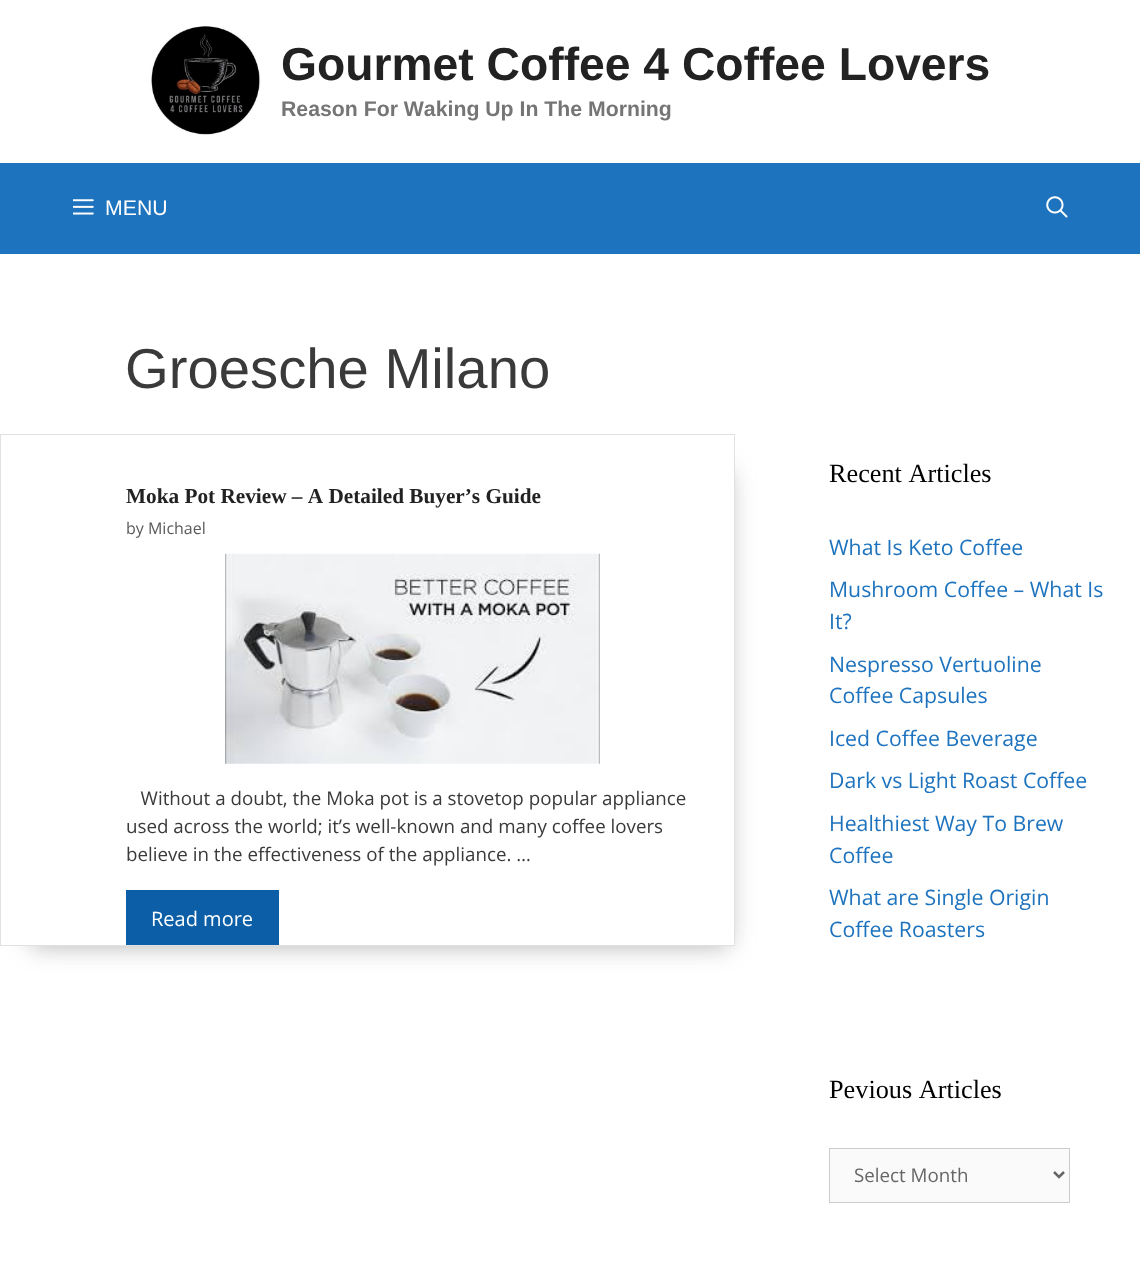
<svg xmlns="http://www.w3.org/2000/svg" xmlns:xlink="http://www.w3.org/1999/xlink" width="1140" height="1274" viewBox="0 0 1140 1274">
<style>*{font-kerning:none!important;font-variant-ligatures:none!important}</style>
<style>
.cls-1{font:bold 46.25px Liberation Sans;fill:#222222}
.cls-2{font:bold 21.25px Liberation Sans;fill:#757575}
.cls-3{font:21.25px Liberation Sans;fill:#ffffff}
.cls-4{font:56.25px Liberation Sans;fill:#3a3a3a}
.cls-5{font:bold 21.25px Liberation Serif;fill:#222222}
.cls-6{font:16px Open Sans;fill:#595959}
.cls-7{font:18.75px Open Sans;fill:#3a3a3a}
.cls-8{font:20px Open Sans;fill:#ffffff}
.cls-9{font:26.25px Liberation Serif;fill:#000000}
.cls-10{font:21.25px Open Sans;fill:#1e73be}
.cls-11{font:18.75px Open Sans;fill:#666666}
</style>
<defs>
<clipPath id="clip1"><path d="M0 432H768V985H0ZM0 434H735V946H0Z" clip-rule="evenodd"/></clipPath>
</defs>
<rect width="100%" height="100%" fill="#ffffff"/>
<image xlink:href="image0.png" x="150" y="26" width="111" height="109"/>
<rect fill="#1e73be" x="0" y="163" width="1140" height="91"/>
<image xlink:href="image1.png" x="73" y="199" width="21" height="16"/>
<image xlink:href="image2.png" x="1046" y="196" width="22" height="22"/>
<g clip-path="url(#clip1)">
<rect fill="#5a5a5a" fill-opacity="0.46" filter="blur(12.5px)" x="31" y="471" width="698" height="475"/>
</g>
<rect fill="none" stroke="#e1e1e1" x="0.5" y="434.5" width="734" height="511"/>
<image xlink:href="image3.png" x="225" y="553" width="375" height="211"/>
<rect fill="#0c5fa7" x="126" y="890" width="153" height="55"/>
<rect fill="#fafafa" stroke="#cccccc" x="829.5" y="1148.5" width="240" height="54"/>
<path fill="none" stroke="#666666" stroke-width="2.5" d="M1054 1172L1059 1177L1064 1172"/>
<text class="cls-1" x="281" y="80">Gourmet Coffee 4 Coffee Lovers</text>
<text class="cls-2" x="281" y="116">Reason For Waking Up In The Morning</text>
<text class="cls-3" x="105" y="215">MENU</text>
<text class="cls-4" x="125" y="388">Groesche Milano</text>
<text class="cls-5" x="126" y="503">Moka Pot Review – A Detailed Buyer’s Guide</text>
<text class="cls-6" x="126" y="534">by Michael</text>
<text class="cls-7" xml:space="preserve"><tspan x="126" y="805">   Without a doubt, the Moka pot is a stovetop popular appliance</tspan><tspan x="126" y="833">used across the world; it’s well-known and many coffee lovers</tspan><tspan x="126" y="861">believe in the effectiveness of the appliance. …</tspan></text>
<text class="cls-8" x="151" y="926">Read more</text>
<text class="cls-9" x="829" y="482">Recent Articles</text>
<text class="cls-10"><tspan x="829" y="555">What Is Keto Coffee</tspan><tspan x="829" y="597">Mushroom Coffee – What Is</tspan><tspan x="829" y="629">It?</tspan></text>
<text class="cls-10"><tspan x="829" y="672">Nespresso Vertuoline</tspan><tspan x="829" y="703">Coffee Capsules</tspan></text>
<text class="cls-10"><tspan x="829" y="746">Iced Coffee Beverage</tspan><tspan x="829" y="788">Dark vs Light Roast Coffee</tspan></text>
<text class="cls-10"><tspan x="829" y="831">Healthiest Way To Brew</tspan><tspan x="829" y="863">Coffee</tspan><tspan x="829" y="905">What are Single Origin</tspan><tspan x="829" y="937">Coffee Roasters</tspan></text>
<text class="cls-9" x="829" y="1098">Pevious Articles</text>
<text class="cls-11" x="854" y="1182">Select Month</text>
</svg>
